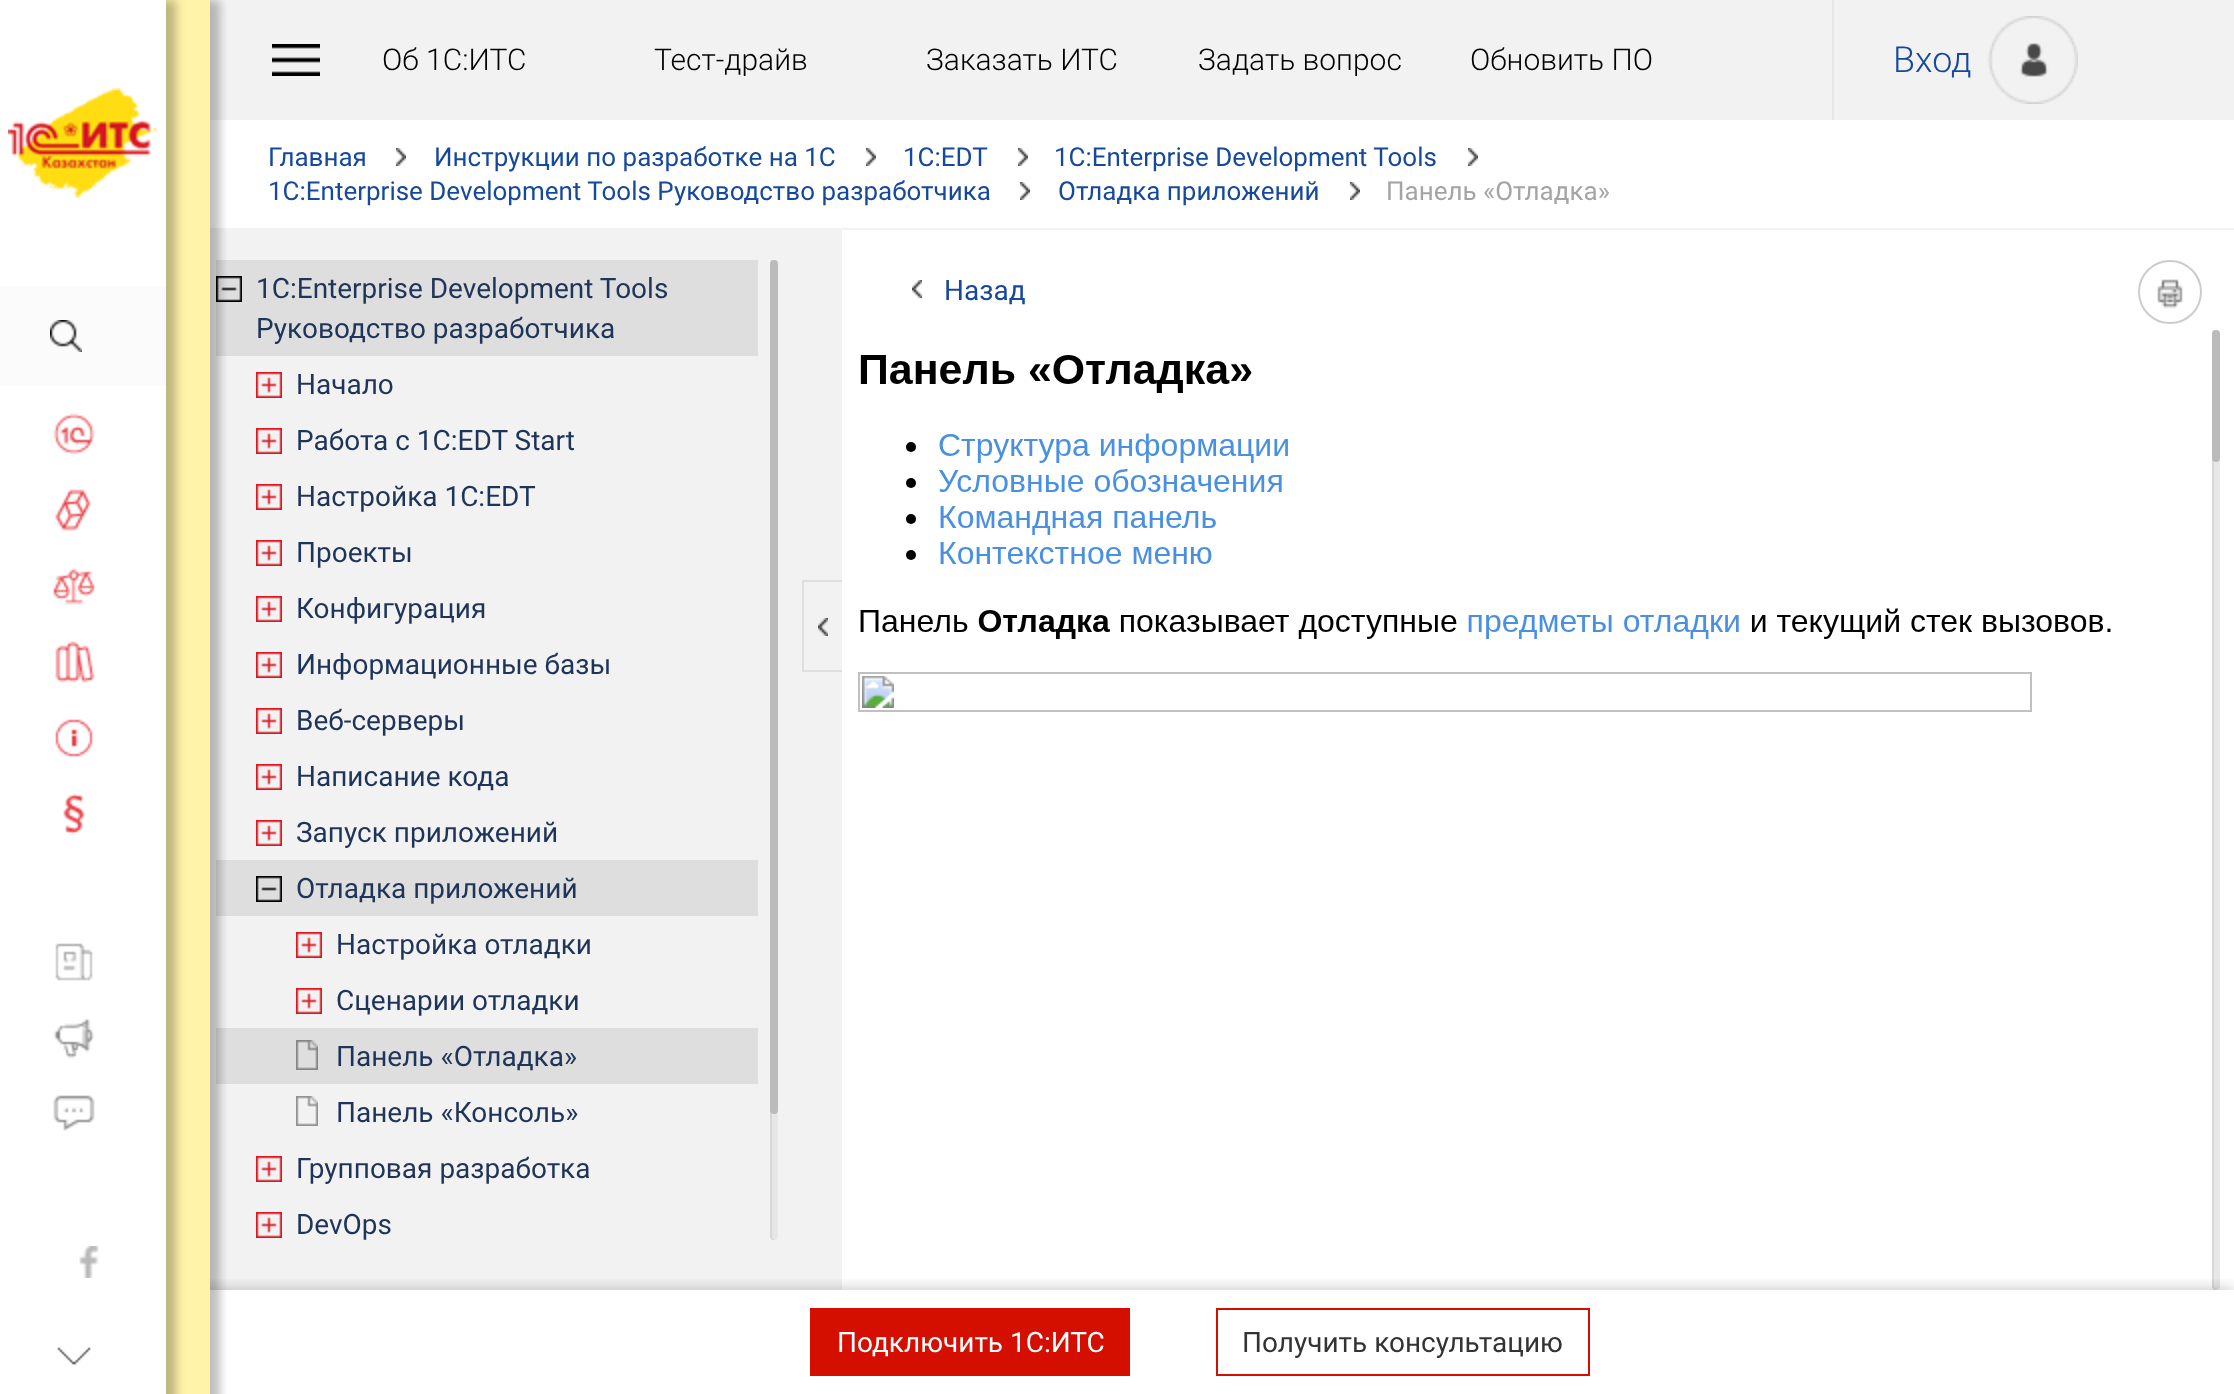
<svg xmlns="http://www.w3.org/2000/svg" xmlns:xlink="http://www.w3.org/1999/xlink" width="2234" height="1394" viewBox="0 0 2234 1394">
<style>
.cls-1{font:300 30px Roboto;fill:#000000}
.cls-2{font:300 36px Roboto;fill:#16489b}
.cls-3{font:26px Roboto;fill:#16489b}
.cls-4{font:26px Roboto;fill:#a4a4a4}
.cls-5{font:28px Roboto;fill:#1e3458}
.cls-6{font:28px Roboto;fill:#16489b}
.cls-7{font:28px Roboto;fill:#ffffff}
.cls-8{font:28px Roboto;fill:#333333}
</style>
<defs>
<clipPath id="clip1"><rect x="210" y="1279" width="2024" height="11"/></clipPath>
<clipPath id="clip2"><rect x="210" y="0" width="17" height="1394"/></clipPath>
</defs>
<rect width="100%" height="100%" fill="#ffffff"/>
<rect fill="#f2f2f2" x="210" y="230" width="632" height="1060"/>
<rect fill="#e7e7e7" x="2212" y="330" width="8" height="960" rx="4"/>
<path fill="#d8d8d8" d="M2216 330C2214 330 2212 332 2212 334V1286C2212 1288 2214 1290 2216 1290H2217C2215 1289 2214 1288 2214 1286V334C2214 332 2215 331 2217 330Z"/>
<g clip-path="url(#clip1)">
<rect fill="#000000" fill-opacity="0.25" filter="blur(8px)" x="0" y="1290" width="2234" height="104"/>
</g>
<rect fill="#fff3a9" x="166" y="0" width="44" height="1394"/>
<rect fill="#000000" fill-opacity="0.25" filter="blur(5px)" x="10" y="0" width="166" height="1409"/>
<rect fill="#ffffff" x="0" y="0" width="166" height="1318"/>
<image xlink:href="image0.png" x="53" y="413" width="42" height="42"/>
<image xlink:href="image1.png" x="55" y="489" width="36" height="42"/>
<image xlink:href="image2.png" x="53" y="568" width="42" height="37"/>
<image xlink:href="image3.png" x="55" y="641" width="40" height="42"/>
<image xlink:href="image4.png" x="55" y="719" width="38" height="38"/>
<image xlink:href="image5.png" x="63" y="793" width="22" height="42"/>
<rect fill="#f2f2f2" x="210" y="0" width="2024" height="120"/>
<rect fill="#f2f2f2" x="210" y="228" width="2024" height="2"/>
<rect fill="#dedede" x="216" y="260" width="542" height="96"/>
<image xlink:href="image16.png" x="216" y="276" width="26" height="26"/>
<rect fill="#dedede" x="216" y="860" width="542" height="56"/>
<rect fill="#dedede" x="216" y="1028" width="542" height="56"/>
<g clip-path="url(#clip2)">
<rect fill="#000000" fill-opacity="0.25" filter="blur(5px)" x="184" y="0" width="36" height="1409"/>
</g>
<image xlink:href="image6.png" x="55" y="943" width="38" height="38"/>
<image xlink:href="image7.png" x="53" y="1018" width="42" height="41"/>
<image xlink:href="image8.png" x="53" y="1095" width="42" height="36"/>
<image xlink:href="image9.png" x="8" y="88" width="150" height="110"/>
<rect fill="#fbfbfb" x="0" y="286" width="166" height="100"/>
<image xlink:href="image10.png" x="50" y="320" width="32" height="32"/>
<image xlink:href="image11.png" x="79" y="1246" width="20" height="32"/>
<rect fill="#ffffff" x="1" y="1318" width="165" height="76"/>
<image xlink:href="image12.png" x="57" y="1347" width="34" height="18"/>
<image xlink:href="image13.png" x="272" y="44" width="48" height="32"/>
<rect fill="#e6e6e6" x="1832" y="0" width="2" height="120"/>
<image xlink:href="image14.png" x="1988" y="16" width="90" height="88"/>
<image xlink:href="image15.png" x="396" y="148" width="10" height="18"/>
<image xlink:href="image15.png" x="866" y="148" width="10" height="18"/>
<image xlink:href="image15.png" x="1018" y="148" width="10" height="18"/>
<image xlink:href="image15.png" x="1468" y="148" width="10" height="18"/>
<image xlink:href="image15.png" x="1020" y="182" width="10" height="18"/>
<image xlink:href="image15.png" x="1350" y="182" width="10" height="18"/>
<image xlink:href="image17.png" x="256" y="372" width="26" height="26"/>
<image xlink:href="image17.png" x="256" y="428" width="26" height="26"/>
<image xlink:href="image17.png" x="256" y="484" width="26" height="26"/>
<image xlink:href="image17.png" x="256" y="540" width="26" height="26"/>
<image xlink:href="image17.png" x="256" y="596" width="26" height="26"/>
<image xlink:href="image17.png" x="256" y="652" width="26" height="26"/>
<image xlink:href="image17.png" x="256" y="708" width="26" height="26"/>
<image xlink:href="image17.png" x="256" y="764" width="26" height="26"/>
<image xlink:href="image17.png" x="256" y="820" width="26" height="26"/>
<image xlink:href="image16.png" x="256" y="876" width="26" height="26"/>
<image xlink:href="image17.png" x="296" y="932" width="26" height="26"/>
<image xlink:href="image17.png" x="296" y="988" width="26" height="26"/>
<image xlink:href="image18.png" x="296" y="1040" width="22" height="30"/>
<image xlink:href="image19.png" x="296" y="1096" width="22" height="30"/>
<image xlink:href="image17.png" x="256" y="1156" width="26" height="26"/>
<image xlink:href="image17.png" x="256" y="1212" width="26" height="26"/>
<rect fill="#e7e7e7" x="770" y="260" width="8" height="980" rx="4"/>
<path fill="#d8d8d8" d="M774 260C772 260 770 262 770 264V1236C770 1239 773 1241 775 1240C773 1239 772 1238 772 1236V264C772 262 773 261 775 260Z"/>
<rect fill="#bbbbbb" x="770" y="260" width="8" height="854" rx="4"/>
<rect fill="#dedede" x="802" y="580" width="40" height="2"/>
<rect fill="#dedede" x="802" y="670" width="40" height="2"/>
<rect fill="#dedede" x="802" y="580" width="2" height="92"/>
<image xlink:href="image20.png" x="818" y="618" width="10" height="18"/>
<image xlink:href="image21.png" x="912" y="280" width="10" height="18"/>
<image xlink:href="image22.png" x="2157" y="279" width="26" height="30"/>
<circle fill="none" stroke="#cccccc" stroke-width="2" cx="2170" cy="292" r="31"/>
<image xlink:href="image23.png" x="858" y="355" width="1253" height="357"/>
<rect fill="#bbbbbb" x="2212" y="330" width="8" height="132" rx="4"/>
<rect fill="#d40f00" x="810" y="1308" width="320" height="68"/>
<rect fill="none" stroke="#d40f00" stroke-width="2" x="1217" y="1309" width="372" height="66"/>
<text class="cls-1" x="382" y="70">Об 1С:ИТС</text>
<text class="cls-1" x="654" y="70">Тест-драйв</text>
<text class="cls-1" x="926" y="70">Заказать ИТС</text>
<text class="cls-1" x="1198" y="70">Задать вопрос</text>
<text class="cls-1" x="1470" y="70">Обновить ПО</text>
<text class="cls-2" x="1893" y="72">Вход</text>
<text class="cls-3" x="268" y="166">Главная</text>
<text class="cls-3" x="434" y="166">Инструкции по разработке на 1С</text>
<text class="cls-3" x="903" y="166">1C:EDT</text>
<text class="cls-3" x="1054" y="166">1C:Enterprise Development Tools</text>
<text class="cls-3" x="268" y="200">1C:Enterprise Development Tools Руководство разработчика</text>
<text class="cls-3" x="1058" y="200">Отладка приложений</text>
<text class="cls-4" x="1386" y="200">Панель «Отладка»</text>
<text class="cls-5"><tspan x="256" y="298">1C:Enterprise Development Tools</tspan><tspan x="256" y="338">Руководство разработчика</tspan></text>
<text class="cls-5" x="296" y="394">Начало</text>
<text class="cls-5" x="296" y="450">Работа с 1C:EDT Start</text>
<text class="cls-5" x="296" y="506">Настройка 1C:EDT</text>
<text class="cls-5" x="296" y="562">Проекты</text>
<text class="cls-5" x="296" y="618">Конфигурация</text>
<text class="cls-5" x="296" y="674">Информационные базы</text>
<text class="cls-5" x="296" y="730">Веб-серверы</text>
<text class="cls-5" x="296" y="786">Написание кода</text>
<text class="cls-5" x="296" y="842">Запуск приложений</text>
<text class="cls-5" x="296" y="898">Отладка приложений</text>
<text class="cls-5" x="336" y="954">Настройка отладки</text>
<text class="cls-5" x="336" y="1010">Сценарии отладки</text>
<text class="cls-5" x="336" y="1066">Панель «Отладка»</text>
<text class="cls-5" x="336" y="1122">Панель «Консоль»</text>
<text class="cls-5" x="296" y="1178">Групповая разработка</text>
<text class="cls-5" x="296" y="1234">DevOps</text>
<text class="cls-6" x="944" y="300">Назад</text>
<text class="cls-7" x="837" y="1352">Подключить 1С:ИТС</text>
<text class="cls-8" x="1242" y="1352">Получить консультацию</text>
</svg>
